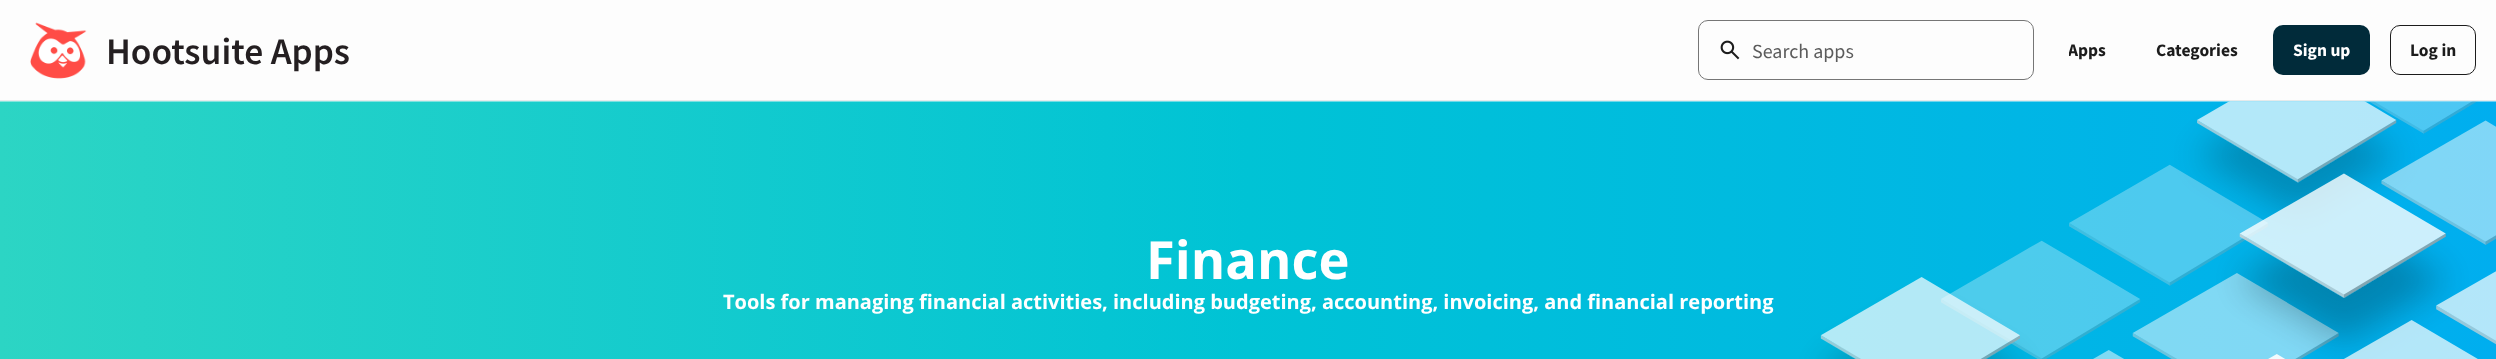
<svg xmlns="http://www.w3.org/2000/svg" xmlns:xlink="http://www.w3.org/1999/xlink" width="2496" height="359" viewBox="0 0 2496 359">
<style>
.cls-1{font:600 37.5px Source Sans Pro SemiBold;fill:#241f21}
.cls-2{font:20px Source Sans Pro;fill:#5c5c5c}
.cls-3{font:bold 17.5px Source Sans Pro;fill:#1c1c1c}
.cls-4{font:bold 17.5px Source Sans Pro;fill:#ffffff}
.cls-5{font:bold 52.5px Open Sans;fill:#ffffff}
.cls-6{font:bold 20px Open Sans;fill:#ffffff}
</style>
<defs>
<clipPath id="clip1"><rect x="2069" y="35" width="37" height="30"/></clipPath>
</defs>
<rect width="100%" height="100%" fill="#fdfdfd"/>
<rect fill="#e6eaeb" x="0" y="100" width="2496" height="1"/>
<image xlink:href="image0.png" x="30" y="22" width="57" height="57"/>
<rect fill="none" stroke="#767676" x="1698.5" y="20.5" width="335" height="59" rx="9.5"/>
<image xlink:href="image1.png" x="1720" y="40" width="20" height="20"/>
<rect fill="#012b3a" x="2273" y="25" width="97" height="50" rx="10"/>
<rect fill="none" stroke="#1c1c1c" x="2390.5" y="25.5" width="85" height="49" rx="9.5"/>
<image xlink:href="image2.png" x="0" y="101" width="2496" height="258"/>
<text class="cls-1" x="106" y="64">Hootsuite Apps</text>
<text class="cls-2" x="1752" y="58">Search apps</text>
<g clip-path="url(#clip1)">
<text class="cls-3" x="2068" y="56">Apps</text>
</g>
<text class="cls-3" x="2156" y="56">Categories</text>
<text class="cls-4" x="2293" y="56">Sign up</text>
<text class="cls-3" x="2410" y="56">Log in</text>
<text class="cls-5" x="1146" y="279">Finance</text>
<text class="cls-6" x="723" y="309">Tools for managing financial activities, including budgeting, accounting, invoicing, and financial reporting</text>
</svg>
